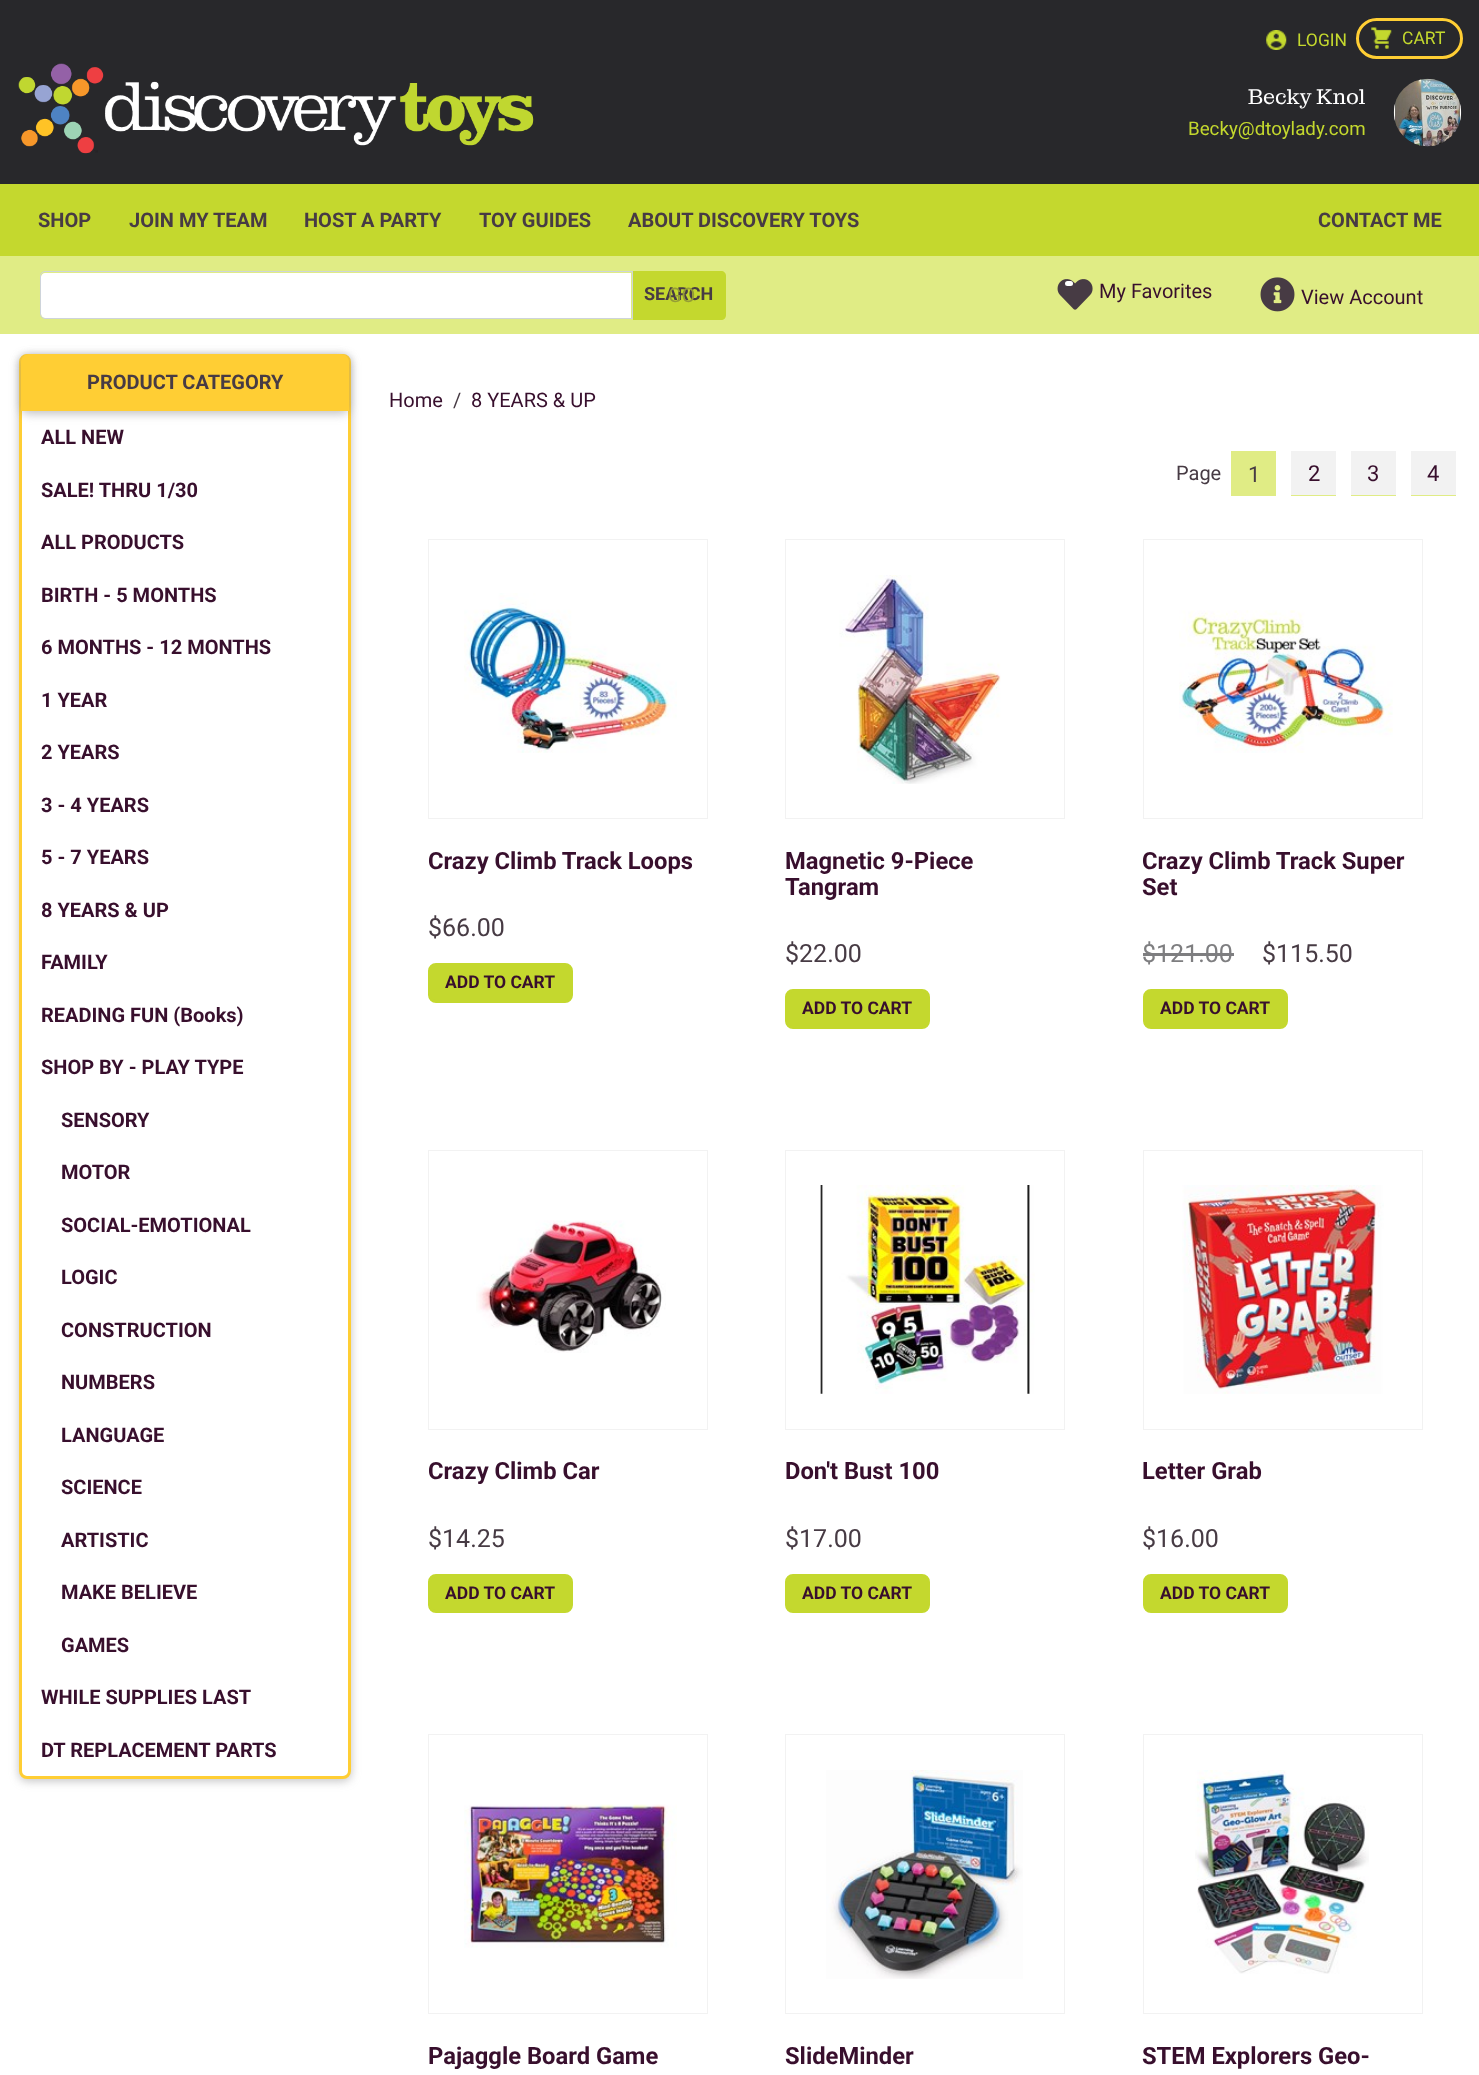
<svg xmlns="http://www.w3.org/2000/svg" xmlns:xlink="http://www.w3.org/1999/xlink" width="1479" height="2075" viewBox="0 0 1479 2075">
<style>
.cls-1{font:17.5px Roboto;fill:#c4d82e}
.cls-2{font:21.5px Montagu Slab;fill:#ffffff}
.cls-3{font:18.75px Roboto;fill:#c4d82e}
.cls-4{font:bold 20px Roboto;fill:#473b44}
.cls-5{font:bold 18px Roboto;fill:#473b44}
.cls-6{font:20px Roboto;fill:#959d36}
.cls-7{font:20px Roboto;fill:#380f2d}
.cls-8{font:bold 20px Roboto;fill:#380f2d}
.cls-9{font:20px Roboto;fill:#473b44}
.cls-10{font:22px Roboto;fill:#473b44}
.cls-11{font:22px Roboto;fill:#380f2d}
.cls-12{font:bold 23.75px Roboto;fill:#380f2d}
.cls-13{font:25px Roboto;fill:#473b44}
.cls-14{font:bold 17.5px Roboto;fill:#380f2d}
.cls-15{font:25px Roboto;fill:#7e7e80}
</style>
<rect width="100%" height="100%" fill="#ffffff"/>
<rect fill="#28282b" x="0" y="0" width="1479" height="184"/>
<image xlink:href="image0.png" x="1266" y="30" width="21" height="20"/>
<image xlink:href="image1.png" x="1371" y="27" width="21" height="22"/>
<rect fill="none" stroke="#ffce34" stroke-width="3" x="1357.5" y="19.5" width="104" height="38" rx="19"/>
<image xlink:href="image2.png" x="18" y="63" width="516" height="91"/>
<image xlink:href="image3.png" x="1393" y="78" width="69" height="69"/>
<rect fill="#c4d82e" x="0" y="184" width="1479" height="72"/>
<rect fill="#e0ec85" x="0" y="256" width="1479" height="78"/>
<path fill="#ffffff" d="M45 273H631V318H45C43 318 41 316 41 314V277C41 275 43 273 45 273Z"/>
<path fill="none" stroke="#ced4da" d="M45 271.5H632.5V318.5H45C42.5 318.5 40.5 316.5 40.5 314V276C40.5 273.5 42.5 271.5 45 271.5Z"/>
<path fill="#c4d82e" d="M633 271H721C724 271 726 273 726 276V315C726 318 724 320 721 320H633Z"/>
<image xlink:href="image4.png" x="1057" y="279" width="36" height="31"/>
<rect fill="#ffffff" x="1065" y="281" width="8" height="5" rx="2.5"/>
<image xlink:href="image5.png" x="1260" y="277" width="35" height="35"/>
<rect fill="#7e7e80" fill-opacity="0.47" filter="blur(5px)" x="19" y="356" width="332" height="1425" rx="8"/>
<rect fill="#ffffff" stroke="#ffce34" stroke-width="3" x="20.5" y="355.5" width="329" height="1422" rx="6.5"/>
<rect fill="#7e7e80" fill-opacity="0.47" filter="blur(5px)" x="21" y="356" width="328" height="58" rx="8"/>
<path fill="#ffce34" d="M29 354H341C345.5 354 349 357.5 349 362V411H21V362C21 357.5 24.5 354 29 354Z"/>
<rect fill="#e0ec85" x="1231" y="451" width="45" height="45"/>
<rect fill="#f2f2f2" x="1291" y="451" width="45" height="44"/>
<rect fill="#e0ec85" x="1291" y="495" width="45" height="1"/>
<rect fill="#f2f2f2" x="1351" y="451" width="45" height="44"/>
<rect fill="#e0ec85" x="1351" y="495" width="45" height="1"/>
<rect fill="#f2f2f2" x="1411" y="451" width="45" height="44"/>
<rect fill="#e0ec85" x="1411" y="495" width="45" height="1"/>
<rect fill="none" stroke="#f2f2f2" x="428.5" y="539.5" width="279" height="279"/>
<image xlink:href="image6.png" x="464" y="593" width="213" height="160"/>
<rect fill="#c4d82e" stroke="#c4d82e" stroke-width="3" x="429.5" y="964.5" width="142" height="37" rx="6.5"/>
<rect fill="none" stroke="#f2f2f2" x="785.5" y="539.5" width="279" height="279"/>
<image xlink:href="image7.png" x="839" y="575" width="162" height="209"/>
<rect fill="#c4d82e" stroke="#c4d82e" stroke-width="3" x="786.5" y="990.5" width="142" height="37" rx="6.5"/>
<rect fill="none" stroke="#f2f2f2" x="1143.5" y="539.5" width="279" height="279"/>
<image xlink:href="image8.png" x="1179" y="610" width="214" height="143"/>
<rect fill="#7e7e80" x="1143" y="953" width="91" height="3"/>
<rect fill="#c4d82e" stroke="#c4d82e" stroke-width="3" x="1144.5" y="990.5" width="142" height="37" rx="6.5"/>
<rect fill="none" stroke="#f2f2f2" x="428.5" y="1150.5" width="279" height="279"/>
<image xlink:href="image9.png" x="476" y="1220" width="190" height="133"/>
<rect fill="#c4d82e" stroke="#c4d82e" stroke-width="3" x="429.5" y="1575.5" width="142" height="36" rx="6.5"/>
<rect fill="none" stroke="#f2f2f2" x="785.5" y="1150.5" width="279" height="279"/>
<image xlink:href="image10.png" x="820" y="1185" width="215" height="209"/>
<rect fill="#c4d82e" stroke="#c4d82e" stroke-width="3" x="786.5" y="1575.5" width="142" height="36" rx="6.5"/>
<rect fill="none" stroke="#f2f2f2" x="1143.5" y="1150.5" width="279" height="279"/>
<image xlink:href="image11.png" x="1182" y="1185" width="202" height="209"/>
<rect fill="#c4d82e" stroke="#c4d82e" stroke-width="3" x="1144.5" y="1575.5" width="142" height="36" rx="6.5"/>
<rect fill="none" stroke="#f2f2f2" x="428.5" y="1734.5" width="279" height="279"/>
<image xlink:href="image12.png" x="464" y="1804" width="213" height="144"/>
<rect fill="none" stroke="#f2f2f2" x="785.5" y="1734.5" width="279" height="279"/>
<image xlink:href="image13.png" x="826" y="1770" width="197" height="209"/>
<rect fill="none" stroke="#f2f2f2" x="1143.5" y="1734.5" width="279" height="279"/>
<image xlink:href="image14.png" x="1195" y="1770" width="174" height="204"/>
<text class="cls-1" x="1297" y="46">LOGIN</text>
<text class="cls-1" x="1402" y="44">CART</text>
<text class="cls-2" x="1248" y="104">Becky Knol</text>
<text class="cls-3" x="1188" y="135">Becky@dtoylady.com</text>
<text class="cls-4" x="38" y="227">SHOP</text>
<text class="cls-4" x="129" y="227">JOIN MY TEAM</text>
<text class="cls-4" x="304" y="227">HOST A PARTY</text>
<text class="cls-4" x="479" y="227">TOY GUIDES</text>
<text class="cls-4" x="628" y="227">ABOUT DISCOVERY TOYS</text>
<text class="cls-4" x="1318" y="227">CONTACT ME</text>
<text class="cls-5" x="644" y="300">SEARCH</text>
<text class="cls-6" x="668" y="302">GO</text>
<text class="cls-7" x="1099" y="298">My Favorites</text>
<text class="cls-7" x="1301" y="304">View Account</text>
<text class="cls-4" x="87" y="389">PRODUCT CATEGORY</text>
<text class="cls-8" x="41" y="444">ALL NEW</text>
<text class="cls-8" x="41" y="497">SALE! THRU 1/30</text>
<text class="cls-8" x="41" y="549">ALL PRODUCTS</text>
<text class="cls-8" x="41" y="602">BIRTH - 5 MONTHS</text>
<text class="cls-8" x="41" y="654">6 MONTHS - 12 MONTHS</text>
<text class="cls-8" x="41" y="707">1 YEAR</text>
<text class="cls-8" x="41" y="759">2 YEARS</text>
<text class="cls-8" x="41" y="812">3 - 4 YEARS</text>
<text class="cls-8" x="41" y="864">5 - 7 YEARS</text>
<text class="cls-8" x="41" y="917">8 YEARS &amp; UP</text>
<text class="cls-8" x="41" y="969">FAMILY</text>
<text class="cls-8" x="41" y="1022">READING FUN (Books)</text>
<text class="cls-8" x="41" y="1074">SHOP BY - PLAY TYPE</text>
<text class="cls-8" x="61" y="1127">SENSORY</text>
<text class="cls-8" x="61" y="1179">MOTOR</text>
<text class="cls-8" x="61" y="1232">SOCIAL-EMOTIONAL</text>
<text class="cls-8" x="61" y="1284">LOGIC</text>
<text class="cls-8" x="61" y="1337">CONSTRUCTION</text>
<text class="cls-8" x="61" y="1389">NUMBERS</text>
<text class="cls-8" x="61" y="1442">LANGUAGE</text>
<text class="cls-8" x="61" y="1494">SCIENCE</text>
<text class="cls-8" x="61" y="1547">ARTISTIC</text>
<text class="cls-8" x="61" y="1599">MAKE BELIEVE</text>
<text class="cls-8" x="61" y="1652">GAMES</text>
<text class="cls-8" x="41" y="1704">WHILE SUPPLIES LAST</text>
<text class="cls-8" x="41" y="1757">DT REPLACEMENT PARTS</text>
<text class="cls-7" x="389" y="407">Home</text>
<text class="cls-9" x="453" y="407">/</text>
<text class="cls-7" x="471" y="407">8 YEARS &amp; UP</text>
<text class="cls-9" x="1176" y="480">Page</text>
<text class="cls-10" x="1248" y="482">1</text>
<text class="cls-11" x="1308" y="481">2</text>
<text class="cls-11" x="1367" y="481">3</text>
<text class="cls-11" x="1427" y="481">4</text>
<text class="cls-12" x="428" y="869">Crazy Climb Track Loops</text>
<text class="cls-13" x="428" y="936">$66.00</text>
<text class="cls-14" x="445" y="988">ADD TO CART</text>
<text class="cls-12"><tspan x="785" y="869">Magnetic 9-Piece</tspan><tspan x="785" y="895">Tangram</tspan></text>
<text class="cls-13" x="785" y="962">$22.00</text>
<text class="cls-14" x="802" y="1014">ADD TO CART</text>
<text class="cls-12"><tspan x="1142" y="869">Crazy Climb Track Super</tspan><tspan x="1142" y="895">Set</tspan></text>
<text class="cls-15" x="1142" y="962">$121.00</text>
<text class="cls-13" x="1262" y="962">$115.50</text>
<text class="cls-14" x="1160" y="1014">ADD TO CART</text>
<text class="cls-12" x="428" y="1479">Crazy Climb Car</text>
<text class="cls-13" x="428" y="1547">$14.25</text>
<text class="cls-14" x="445" y="1599">ADD TO CART</text>
<text class="cls-12" x="785" y="1479">Don't Bust 100</text>
<text class="cls-13" x="785" y="1547">$17.00</text>
<text class="cls-14" x="802" y="1599">ADD TO CART</text>
<text class="cls-12" x="1142" y="1479">Letter Grab</text>
<text class="cls-13" x="1142" y="1547">$16.00</text>
<text class="cls-14" x="1160" y="1599">ADD TO CART</text>
<text class="cls-12" x="428" y="2064">Pajaggle Board Game</text>
<text class="cls-12" x="785" y="2064">SlideMinder</text>
<text class="cls-12" x="1142" y="2064">STEM Explorers Geo-</text>
</svg>
